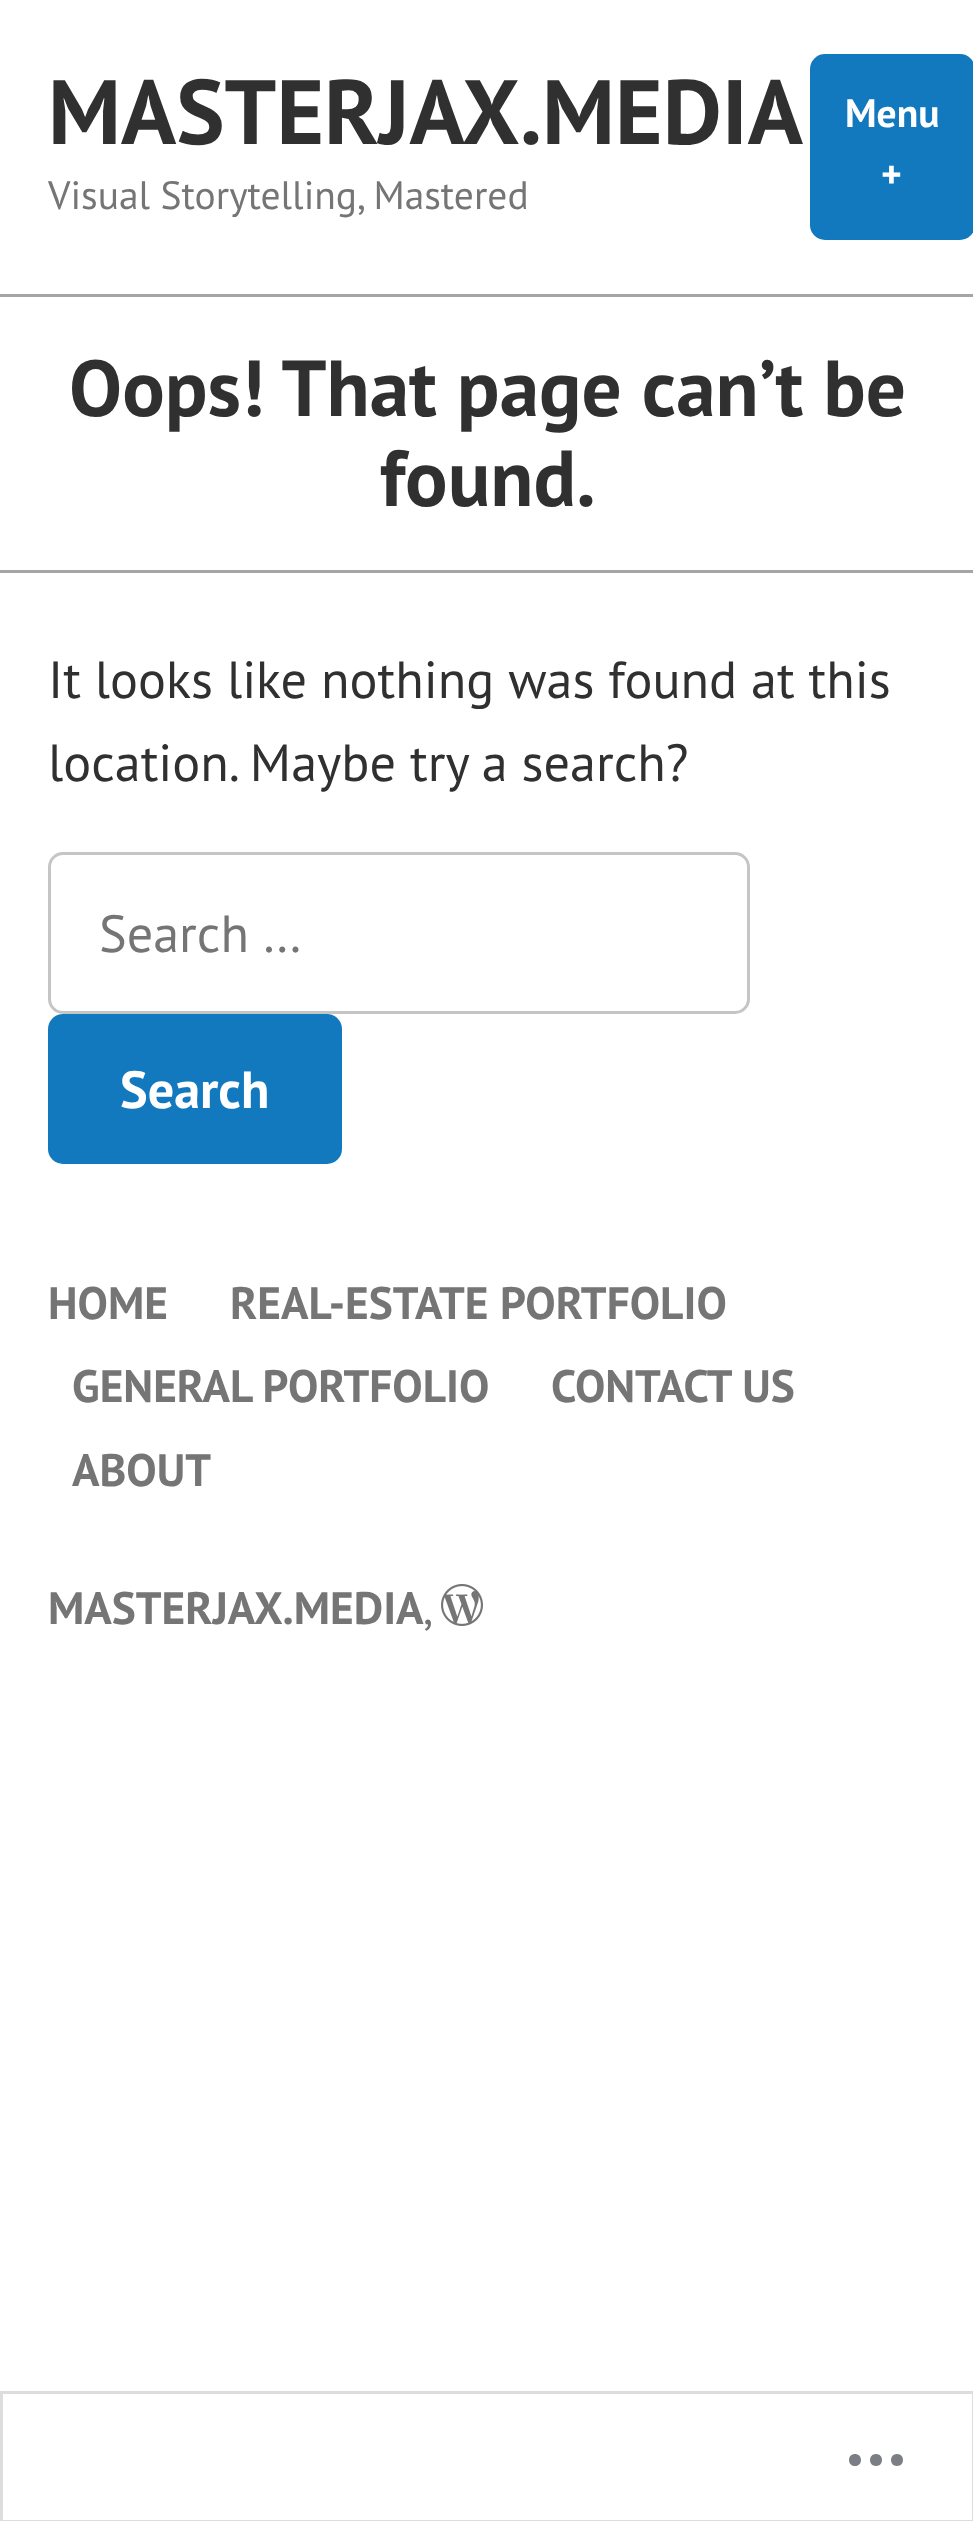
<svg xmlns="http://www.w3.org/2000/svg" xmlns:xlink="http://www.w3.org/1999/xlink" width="973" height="2521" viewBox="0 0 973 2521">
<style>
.cls-1{font:bold 91.25px PT Sans;fill:#303030}
.cls-2{font:bold 39.5px PT Sans;fill:#ffffff}
.cls-3{font:39.5px PT Sans;fill:#757575}
.cls-4{font:bold 79.3px PT Sans;fill:#303030}
.cls-5{font:52.2px PT Sans;fill:#303030}
.cls-6{font:52.2px PT Sans;fill:#757575}
.cls-7{font:bold 52.2px PT Sans;fill:#ffffff}
.cls-8{font:bold 45.4px PT Sans;fill:#757575}
.cls-9{font:45.4px PT Sans;fill:#757575}
</style>
<rect width="100%" height="100%" fill="#ffffff"/>
<rect fill="#1279be" x="810" y="54" width="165" height="186" rx="15"/>
<rect fill="#a5a5a5" x="0" y="294" width="973" height="3"/>
<rect fill="#a5a5a5" x="0" y="570" width="973" height="3"/>
<rect fill="none" stroke="#c5c5c5" stroke-width="3" x="49.5" y="853.5" width="699" height="159" rx="13.5"/>
<rect fill="#1279be" x="48" y="1014" width="294" height="150" rx="15"/>
<image xlink:href="image0.png" x="441" y="1584" width="42" height="42"/>
<rect fill="none" stroke="#dddddf" stroke-width="3" x="1.5" y="2392.5" width="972" height="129"/>
<path fill="#7b7f85" d="M861 2460C861 2468 849 2468 849 2460C849 2452 861 2452 861 2460ZM897 2454C889 2454 889 2466 897 2466C905 2466 905 2454 897 2454ZM876 2454C868 2454 868 2466 876 2466C884 2466 884 2454 876 2454Z"/>
<text class="cls-1" x="48" y="144">MASTERJAX.MEDIA</text>
<text class="cls-2" x="845" y="127">Menu</text>
<text class="cls-2" x="881" y="188">+</text>
<text class="cls-3" x="48" y="209">Visual Storytelling, Mastered</text>
<text class="cls-4" x="69" y="416">Oops! That page can’t be</text>
<text class="cls-4" x="380" y="506">found.</text>
<text class="cls-5"><tspan x="48" y="698">It looks like nothing was found at this</tspan><tspan x="48" y="781">location. Maybe try a search?</tspan></text>
<text class="cls-6" x="99" y="952">Search …</text>
<text class="cls-7" x="120" y="1108">Search</text>
<text class="cls-8" x="48" y="1319">HOME</text>
<text class="cls-8" x="230" y="1319">REAL-ESTATE PORTFOLIO</text>
<text class="cls-8" x="72" y="1402">GENERAL PORTFOLIO</text>
<text class="cls-8" x="551" y="1402">CONTACT US</text>
<text class="cls-8" x="72" y="1486">ABOUT</text>
<text class="cls-8" x="48" y="1624">MASTERJAX.MEDIA</text>
<text class="cls-9" x="423" y="1624">,</text>
</svg>
